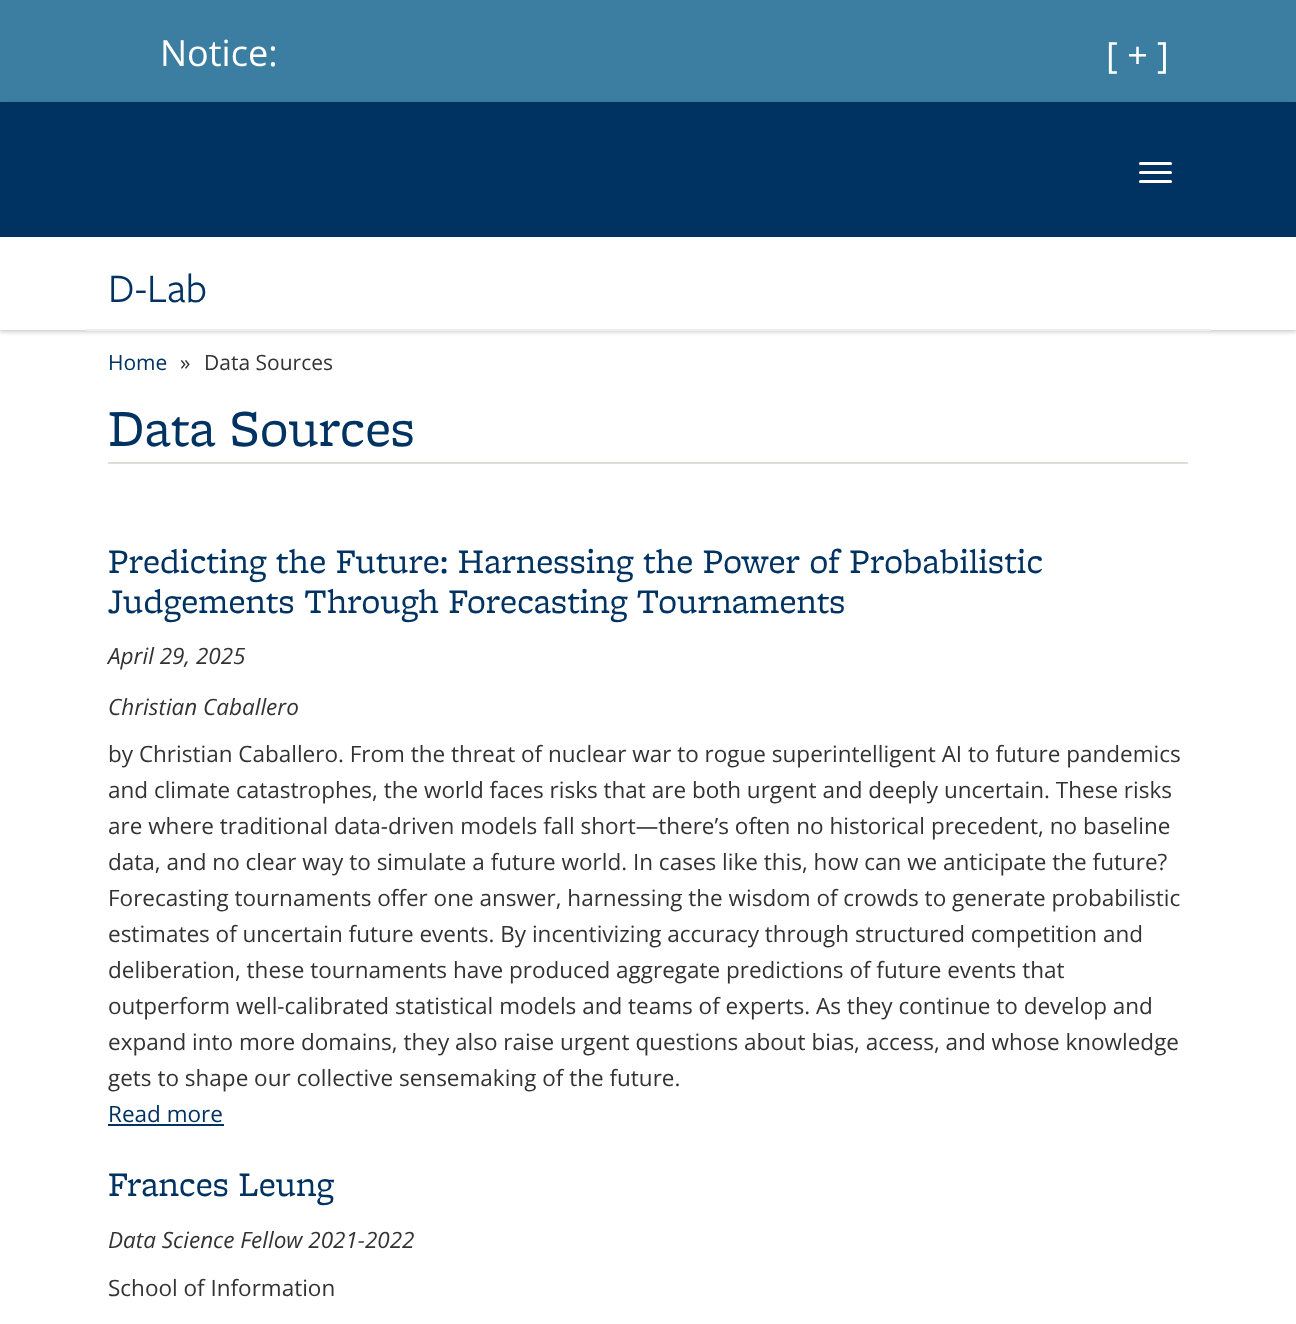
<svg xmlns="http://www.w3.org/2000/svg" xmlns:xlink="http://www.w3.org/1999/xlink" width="1296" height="1324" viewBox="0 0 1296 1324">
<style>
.cls-1{font:36px Open Sans;fill:#ffffff}
.cls-2{font:42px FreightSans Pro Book;fill:#003262}
.cls-3{font:21px Open Sans;fill:#003262}
.cls-4{font:21px Open Sans;fill:#333333}
.cls-5{font:54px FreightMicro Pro;fill:#003262}
.cls-6{font:36px FreightMicro Pro;fill:#003262}
.cls-7{font:italic 22.5px Open Sans;fill:#333333}
.cls-8{font:22.5px Open Sans;fill:#333333}
.cls-9{font:22.5px Open Sans;fill:#003262}
</style>
<defs>
<clipPath id="clip1"><path d="M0 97H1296V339H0ZM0 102H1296V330H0Z" clip-rule="evenodd"/></clipPath>
</defs>
<rect width="100%" height="100%" fill="#ffffff"/>
<rect fill="#3b7ea1" x="0" y="0" width="1296" height="102"/>
<g clip-path="url(#clip1)">
<rect fill="#000000" fill-opacity="0.2" filter="blur(2px)" x="0" y="104" width="1296" height="228"/>
</g>
<rect fill="#003262" x="0" y="102" width="1296" height="135"/>
<rect fill="#ffffff" x="1139" y="162" width="33" height="3" rx="1.5"/>
<rect fill="#ffffff" x="1139" y="171" width="33" height="3" rx="1.5"/>
<rect fill="#ffffff" x="1139" y="180" width="33" height="3" rx="1.5"/>
<rect fill="#eeeeee" x="86" y="329" width="1125" height="2"/>
<rect fill="#dfddd6" x="108" y="462" width="1080" height="2"/>
<rect fill="#003262" x="108" y="1124" width="116" height="2"/>
<text class="cls-1" x="160" y="66">Notice:</text>
<text class="cls-1" x="1106" y="68">[ + ]</text>
<text class="cls-2" x="108" y="302">D-Lab</text>
<text class="cls-3" x="108" y="370">Home</text>
<text class="cls-4" x="180" y="370">»</text>
<text class="cls-4" x="204" y="370">Data Sources</text>
<text class="cls-5" x="108" y="446">Data Sources</text>
<text class="cls-6"><tspan x="108" y="573">Predicting the Future: Harnessing the Power of Probabilistic</tspan><tspan x="108" y="613">Judgements Through Forecasting Tournaments</tspan></text>
<text class="cls-7" x="108" y="664">April 29, 2025</text>
<text class="cls-7" x="108" y="715">Christian Caballero</text>
<text class="cls-8"><tspan x="108" y="762">by Christian Caballero. From the threat of nuclear war to rogue superintelligent AI to future pandemics</tspan><tspan x="108" y="798">and climate catastrophes, the world faces risks that are both urgent and deeply uncertain. These risks</tspan><tspan x="108" y="834">are where traditional data-driven models fall short—there’s often no historical precedent, no baseline</tspan><tspan x="108" y="870">data, and no clear way to simulate a future world. In cases like this, how can we anticipate the future?</tspan><tspan x="108" y="906">Forecasting tournaments offer one answer, harnessing the wisdom of crowds to generate probabilistic</tspan><tspan x="108" y="942">estimates of uncertain future events. By incentivizing accuracy through structured competition and</tspan><tspan x="108" y="978">deliberation, these tournaments have produced aggregate predictions of future events that</tspan><tspan x="108" y="1014">outperform well-calibrated statistical models and teams of experts. As they continue to develop and</tspan><tspan x="108" y="1050">expand into more domains, they also raise urgent questions about bias, access, and whose knowledge</tspan><tspan x="108" y="1086">gets to shape our collective sensemaking of the future.</tspan></text>
<text class="cls-9" x="108" y="1122">Read more</text>
<text class="cls-6" x="108" y="1196">Frances Leung</text>
<text class="cls-7" x="108" y="1248">Data Science Fellow 2021-2022</text>
<text class="cls-8" x="108" y="1296">School of Information</text>
</svg>
